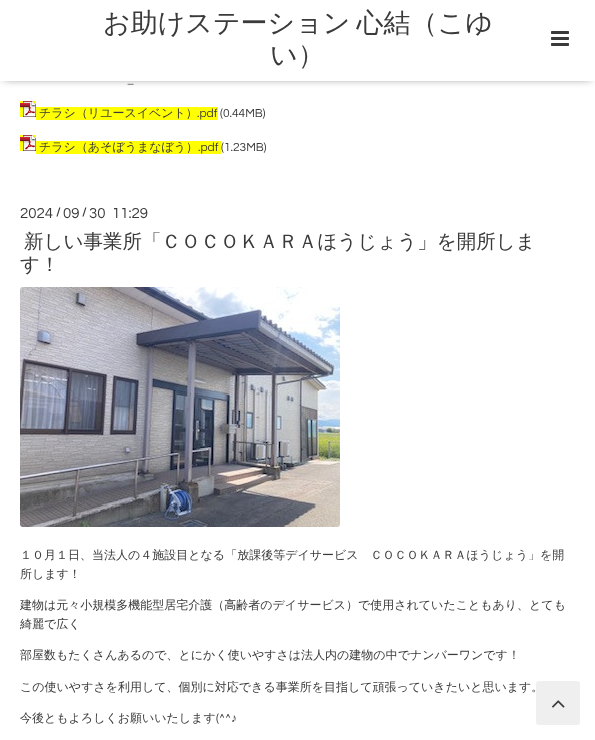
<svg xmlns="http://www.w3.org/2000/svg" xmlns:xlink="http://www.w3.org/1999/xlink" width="595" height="740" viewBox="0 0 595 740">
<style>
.cls-1{font:500 27px WenQuanYi Zen Hei;fill:#3a3a3a}
.cls-2{font:12px Questrial;fill:#3a3a3a}
.cls-3{font:500 12px WenQuanYi Zen Hei;fill:#3a3a3a}
.cls-4{font:15px Questrial;fill:#3a3a3a}
.cls-5{font:bold 12px Questrial;fill:#3a3a3a}
.cls-6{font:500 19.5px WenQuanYi Zen Hei;fill:#3a3a3a}
.cls-7{font:12px Liberation Sans;fill:#3a3a3a}
</style>
<rect width="100%" height="100%" fill="#ffffff"/>
<rect fill="#000000" fill-opacity="0.6" filter="blur(5px)" x="4" y="5" width="587" height="73"/>
<rect fill="#ffffff" x="0" y="0" width="595" height="81"/>
<image xlink:href="image0.png" x="551" y="31" width="18" height="15"/>
<rect fill="#ffff00" x="20" y="101" width="16" height="16"/>
<image xlink:href="image1.png" x="20" y="101" width="16" height="16"/>
<rect fill="#ffff00" x="36" y="107" width="182" height="13"/>
<rect fill="#ffff00" x="20" y="135" width="16" height="16"/>
<image xlink:href="image1.png" x="20" y="135" width="16" height="16"/>
<rect fill="#ffff00" x="36" y="141" width="185" height="13"/>
<image xlink:href="image2.png" x="20" y="287" width="320" height="240"/>
<rect fill="#efefef" x="536" y="681" width="44" height="44" rx="3"/>
<image xlink:href="image3.png" x="552" y="700" width="13" height="8"/>
<text class="cls-1" x="103" y="32" word-spacing="-2">お助けステーション 心結（こゆ</text>
<text class="cls-1" x="270" y="64">い）</text>
<text class="cls-2" x="127" y="83">_</text>
<text class="cls-3" x="39" y="117">チラシ（リユースイベント）</text>
<text class="cls-2" x="197" y="117">.pdf (0.44MB)</text>
<text class="cls-3" x="39" y="151">チラシ（あそぼうまなぼう）</text>
<text class="cls-2" x="198" y="151">.pdf (1.23MB)</text>
<text class="cls-4" x="20" y="218">2024</text>
<text class="cls-5" x="56" y="216">/</text>
<text class="cls-4" x="63" y="218">09</text>
<text class="cls-5" x="82" y="216">/</text>
<text class="cls-4" xml:space="preserve" x="89" y="218">30  11:29</text>
<text class="cls-6" x="24" y="248">新しい事業所「ＣＯＣＯＫＡＲＡほうじょう」を開所しま</text>
<text class="cls-6" x="20" y="271">す！</text>
<text class="cls-3"><tspan x="20" y="559">１０月１日、当法人の４施設目となる「放課後等デイサービス　ＣＯＣＯＫＡＲＡほうじょう」を開</tspan><tspan x="20" y="578">所します！</tspan></text>
<text class="cls-3"><tspan x="20" y="609">建物は元々小規模多機能型居宅介護（高齢者のデイサービス）で使用されていたこともあり、とても</tspan><tspan x="20" y="628">綺麗で広く</tspan></text>
<text class="cls-3" x="20" y="659">部屋数もたくさんあるので、とにかく使いやすさは法人内の建物の中でナンバーワンです！</text>
<text class="cls-3" x="20" y="691">この使いやすさを利用して、個別に対応できる事業所を目指して頑張っていきたいと思います。</text>
<text class="cls-3" x="20" y="722">今後ともよろしくお願いいたします</text>
<text class="cls-2" x="216" y="722">(^^</text>
<text class="cls-7" x="231" y="722">♪</text>
</svg>
